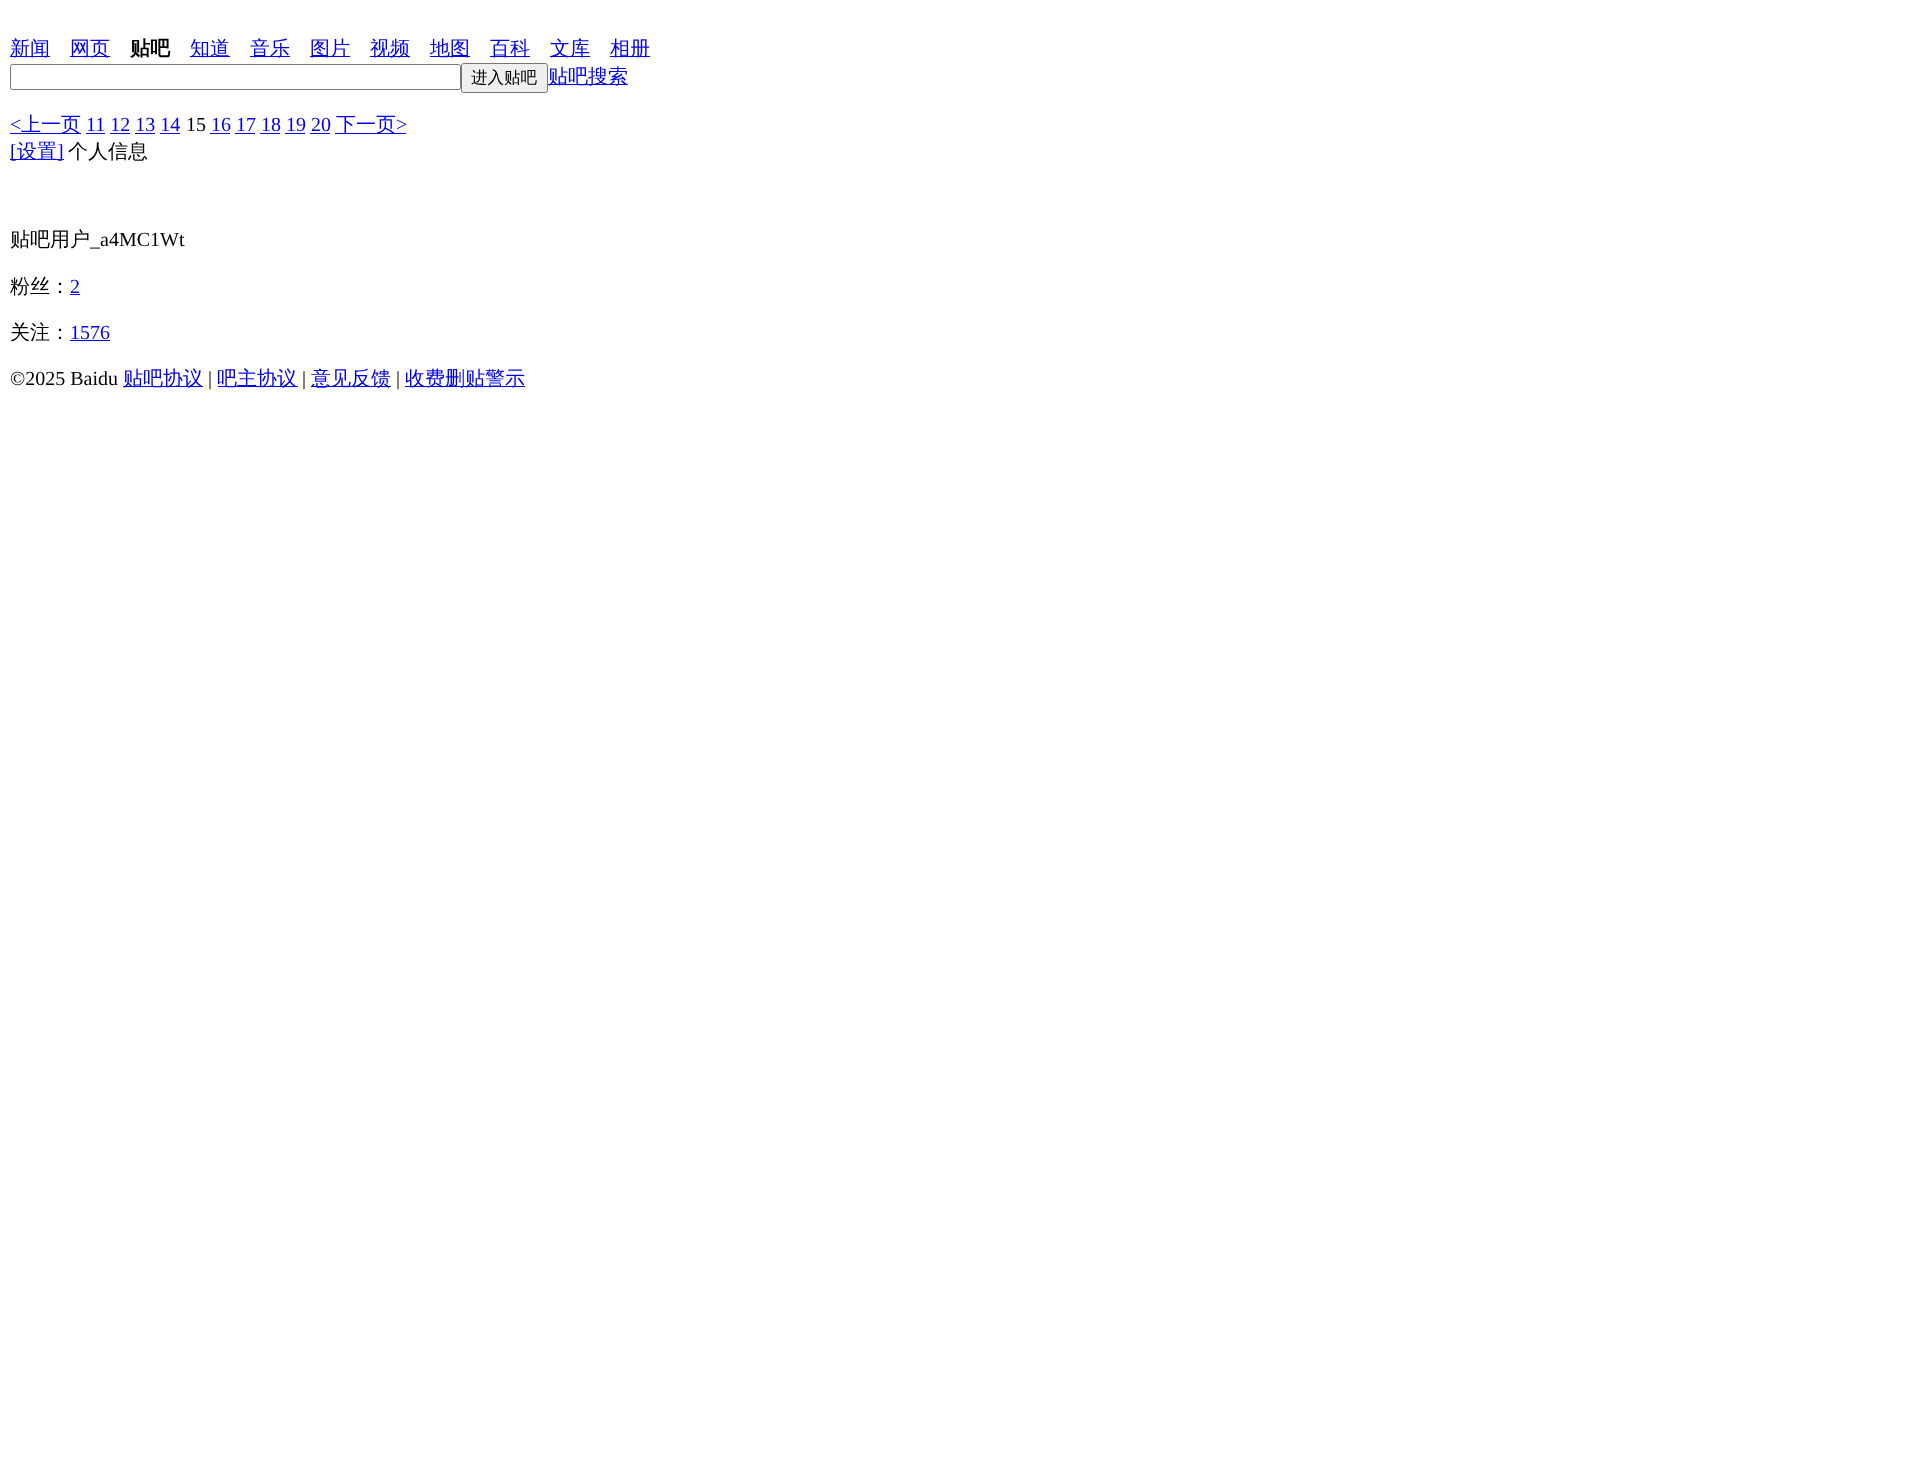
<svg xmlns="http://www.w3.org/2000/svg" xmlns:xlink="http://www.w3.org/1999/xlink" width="1914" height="1460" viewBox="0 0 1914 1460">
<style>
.cls-1{font:500 20px WenQuanYi Zen Hei;fill:#0000ee}
.cls-2{font:bold 20px WenQuanYi Zen Hei;fill:#000000}
.cls-3{font:500 16.5px WenQuanYi Zen Hei;fill:#000000}
.cls-4{font:20px Liberation Serif;fill:#0000ee}
.cls-5{font:20px Liberation Serif;fill:#000000}
.cls-6{font:500 20px WenQuanYi Zen Hei;fill:#000000}
</style>
<rect width="100%" height="100%" fill="#ffffff"/>
<rect fill="#0000ee" x="10" y="56" width="40" height="1"/>
<rect fill="#0000ee" x="70" y="56" width="40" height="1"/>
<rect fill="#0000ee" x="190" y="56" width="40" height="1"/>
<rect fill="#0000ee" x="250" y="56" width="40" height="1"/>
<rect fill="#0000ee" x="310" y="56" width="40" height="1"/>
<rect fill="#0000ee" x="370" y="56" width="40" height="1"/>
<rect fill="#0000ee" x="430" y="56" width="40" height="1"/>
<rect fill="#0000ee" x="490" y="56" width="40" height="1"/>
<rect fill="#0000ee" x="550" y="56" width="40" height="1"/>
<rect fill="#0000ee" x="610" y="56" width="40" height="1"/>
<rect fill="none" stroke="#767676" x="10.5" y="64.5" width="450" height="25" rx="2"/>
<rect fill="#efefef" stroke="#767676" x="461.5" y="63.5" width="86" height="29" rx="2"/>
<rect fill="#0000ee" x="548" y="84" width="80" height="1"/>
<rect fill="#0000ee" x="10" y="133" width="71" height="1"/>
<rect fill="#0000ee" x="86" y="133" width="19" height="1"/>
<rect fill="#0000ee" x="210" y="133" width="20" height="1"/>
<rect fill="#0000ee" x="335" y="133" width="71" height="1"/>
<rect fill="#0000ee" x="110" y="133" width="20" height="1"/>
<rect fill="#0000ee" x="135" y="133" width="20" height="1"/>
<rect fill="#0000ee" x="160" y="133" width="20" height="1"/>
<rect fill="#0000ee" x="235" y="133" width="20" height="1"/>
<rect fill="#0000ee" x="260" y="133" width="20" height="1"/>
<rect fill="#0000ee" x="285" y="133" width="20" height="1"/>
<rect fill="#0000ee" x="310" y="133" width="20" height="1"/>
<rect fill="#0000ee" x="10" y="159" width="54" height="1"/>
<rect fill="#0000ee" x="70" y="294" width="10" height="1"/>
<rect fill="#0000ee" x="70" y="340" width="40" height="1"/>
<rect fill="#0000ee" x="123" y="386" width="80" height="1"/>
<rect fill="#0000ee" x="218" y="386" width="80" height="1"/>
<rect fill="#0000ee" x="311" y="386" width="80" height="1"/>
<rect fill="#0000ee" x="405" y="386" width="120" height="1"/>
<text class="cls-1" x="10" y="55">新闻</text>
<text class="cls-1" x="70" y="55">网页</text>
<text class="cls-2" x="130" y="55">贴吧</text>
<text class="cls-1" x="190" y="55">知道</text>
<text class="cls-1" x="250" y="55">音乐</text>
<text class="cls-1" x="310" y="55">图片</text>
<text class="cls-1" x="370" y="55">视频</text>
<text class="cls-1" x="430" y="55">地图</text>
<text class="cls-1" x="490" y="55">百科</text>
<text class="cls-1" x="550" y="55">文库</text>
<text class="cls-1" x="610" y="55">相册</text>
<text class="cls-3" x="471" y="83">进入贴吧</text>
<text class="cls-1" x="548" y="83">贴吧搜索</text>
<text class="cls-4" x="10" y="131">&lt;</text>
<text class="cls-1" x="21" y="131">上一页</text>
<text class="cls-4" x="86" y="131">11 12 13 14</text>
<text class="cls-5" x="186" y="131">15</text>
<text class="cls-4" x="211" y="131">16 17 18 19 20</text>
<text class="cls-1" x="336" y="131">下一页</text>
<text class="cls-4" x="396" y="131">&gt;</text>
<text class="cls-4" x="10" y="158">[</text>
<text class="cls-1" x="17" y="158">设置</text>
<text class="cls-4" x="57" y="158">]</text>
<text class="cls-6" x="68" y="158">个人信息</text>
<text class="cls-6" x="10" y="246">贴吧用户</text>
<text class="cls-5" x="90" y="246">_a4MC1Wt</text>
<text class="cls-6" x="10" y="293">粉丝：</text>
<text class="cls-4" x="70" y="293">2</text>
<text class="cls-6" x="10" y="339">关注：</text>
<text class="cls-4" x="70" y="339">1576</text>
<text class="cls-5" x="10" y="385">©2025 Baidu</text>
<text class="cls-1" x="123" y="385">贴吧协议</text>
<text class="cls-5" x="208" y="385">|</text>
<text class="cls-1" x="217" y="385">吧主协议</text>
<text class="cls-5" x="302" y="385">|</text>
<text class="cls-1" x="311" y="385">意见反馈</text>
<text class="cls-5" x="396" y="385">|</text>
<text class="cls-1" x="405" y="385">收费删贴警示</text>
</svg>
